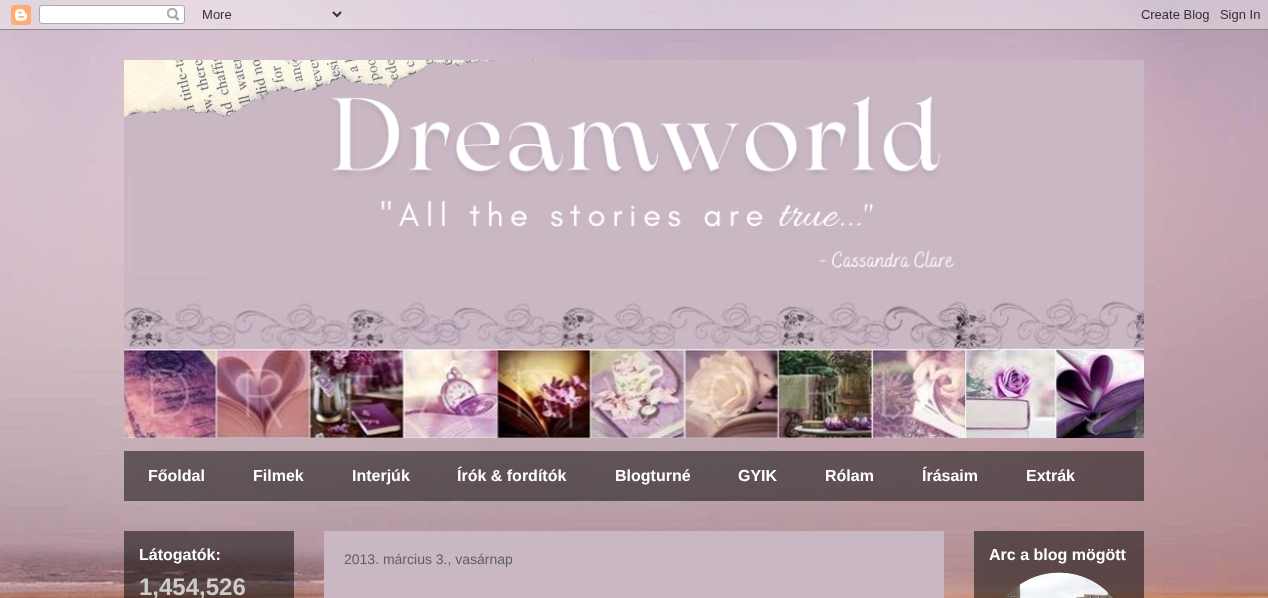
<svg xmlns="http://www.w3.org/2000/svg" xmlns:xlink="http://www.w3.org/1999/xlink" width="1268" height="598" viewBox="0 0 1268 598">
<style>
.cls-1{font:bold 16px Liberation Sans;fill:#ffffff}
.cls-2{font:bold 24px Liberation Sans;fill:#cccccc}
.cls-3{font:14px Liberation Sans;fill:#606060}
</style>
<rect width="100%" height="100%" fill="#ffffff"/>
<image xlink:href="image0.png" x="0" y="0" width="1268" height="598"/>
<image xlink:href="image1.png" x="0" y="0" width="1268" height="30"/>
<image xlink:href="image2.png" x="124" y="60" width="1020" height="378"/>
<rect fill="#000000" fill-opacity="0.5" x="124" y="451" width="1020" height="50"/>
<rect fill="#000000" fill-opacity="0.5" x="124" y="531" width="170" height="67"/>
<rect fill="#000000" fill-opacity="0.5" x="974" y="531" width="170" height="67"/>
<rect fill="#c9b7c3" x="324" y="531" width="620" height="67"/>
<image xlink:href="image3.png" x="1005" y="572" width="108" height="26"/>
<text class="cls-1" x="148" y="481">Főoldal</text>
<text class="cls-1" x="253" y="481">Filmek</text>
<text class="cls-1" x="352" y="481">Interjúk</text>
<text class="cls-1" x="457" y="481">Írók &amp; fordítók</text>
<text class="cls-1" x="615" y="481">Blogturné</text>
<text class="cls-1" x="738" y="481">GYIK</text>
<text class="cls-1" x="825" y="481">Rólam</text>
<text class="cls-1" x="922" y="481">Írásaim</text>
<text class="cls-1" x="1026" y="481">Extrák</text>
<text class="cls-1" x="139" y="560">Látogatók:</text>
<text class="cls-2" x="139" y="595">1,454,526</text>
<text class="cls-3" x="344" y="564">2013. március 3., vasárnap</text>
<text class="cls-1" x="989" y="560">Arc a blog mögött</text>
</svg>
